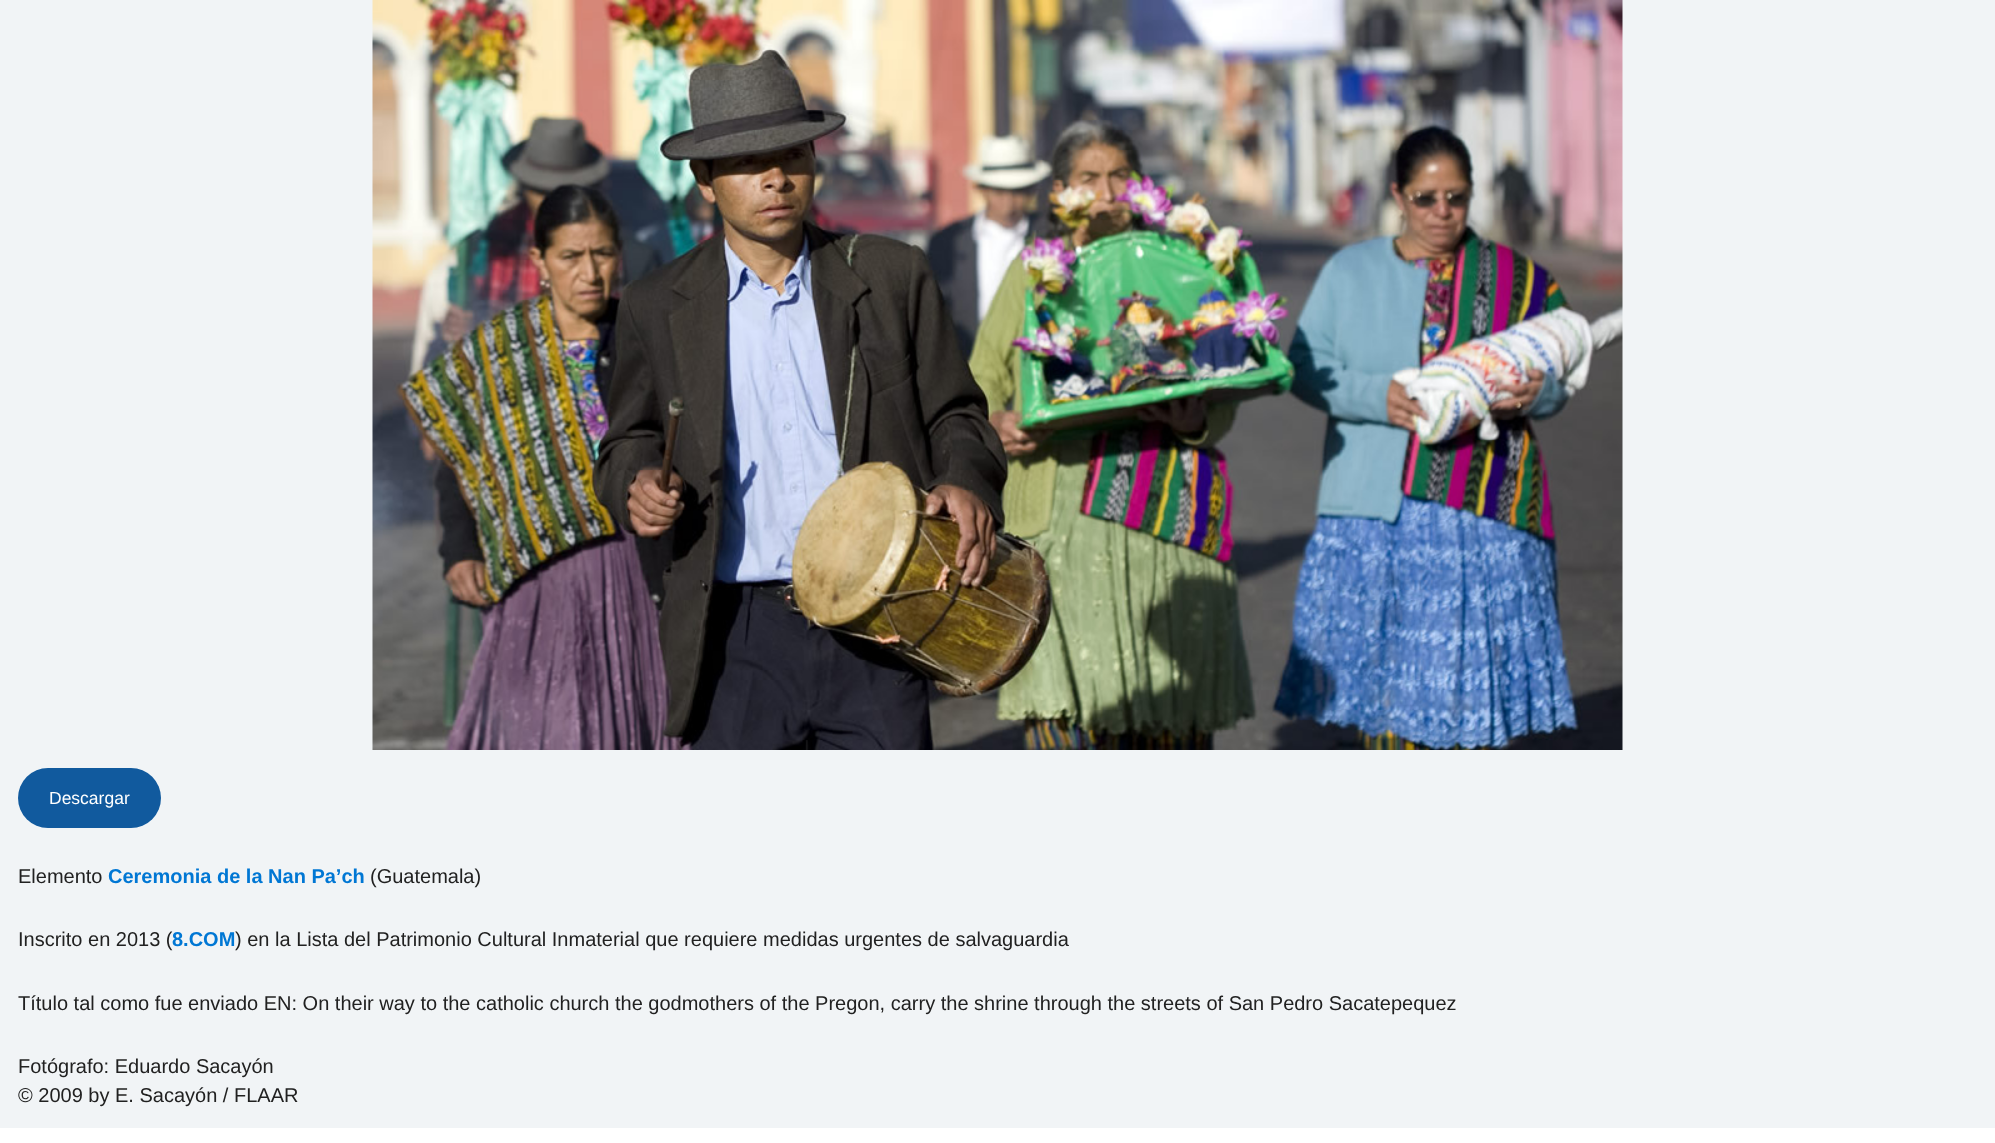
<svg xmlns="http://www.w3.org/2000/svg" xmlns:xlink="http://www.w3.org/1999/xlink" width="1995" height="1143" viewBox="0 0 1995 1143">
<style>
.cls-1{font:17.5px Liberation Sans;fill:#ffffff}
.cls-2{font:20px Liberation Sans;fill:#212121}
.cls-3{font:bold 20px Liberation Sans;fill:#0077d4}
</style>
<rect width="100%" height="100%" fill="#ffffff"/>
<rect fill="#f1f4f6" x="0" y="0" width="1995" height="1128"/>
<image xlink:href="image0.png" x="372" y="0" width="1251" height="750"/>
<rect fill="#115a9e" x="18" y="768" width="143" height="60" rx="30"/>
<text class="cls-1" x="49" y="804">Descargar</text>
<text class="cls-2" x="18" y="883">Elemento</text>
<text class="cls-3" x="108" y="883">Ceremonia de la Nan Pa’ch</text>
<text class="cls-2" x="370" y="883">(Guatemala)</text>
<text class="cls-2" x="18" y="946">Inscrito en 2013 (</text>
<text class="cls-3" x="172" y="946">8.COM</text>
<text class="cls-2" x="235" y="946">) en la Lista del Patrimonio Cultural Inmaterial que requiere medidas urgentes de salvaguardia</text>
<text class="cls-2" x="18" y="1010">Título tal como fue enviado EN: On their way to the catholic church the godmothers of the Pregon, carry the shrine through the streets of San Pedro Sacatepequez</text>
<text class="cls-2"><tspan x="18" y="1073">Fotógrafo: Eduardo Sacayón</tspan><tspan x="18" y="1102">© 2009 by E. Sacayón / FLAAR</tspan></text>
</svg>
